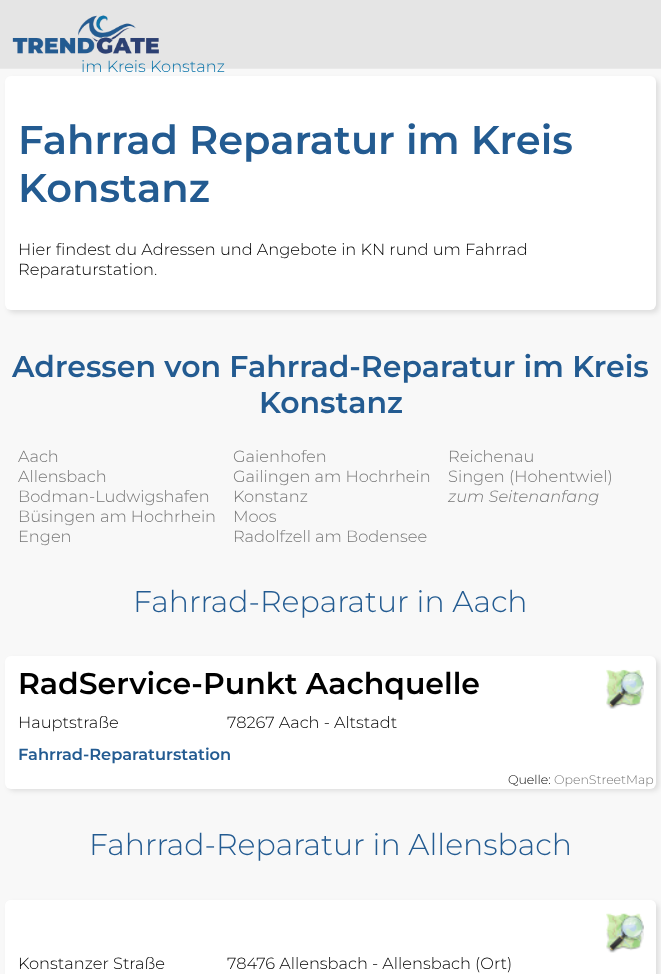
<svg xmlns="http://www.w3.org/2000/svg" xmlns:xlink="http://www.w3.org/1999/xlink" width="661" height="974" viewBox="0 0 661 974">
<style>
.cls-1{font:100 16.25px 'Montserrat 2';fill:#0e75aa}
.cls-2{font:100 40px Montserrat;fill:#235b91}
.cls-3{font:100 16.25px 'Montserrat 2';fill:#000000}
.cls-4{font:100 30px Montserrat;fill:#235b91}
.cls-5{font:100 16.25px 'Montserrat 2';fill:#777777}
.cls-6{font:italic 100 16.25px Montserrat;fill:#777777}
.cls-7{font:100 30px 'Montserrat 2';fill:#235b91}
.cls-8{font:100 30px Montserrat;fill:#000000}
.cls-9{font:100 16.25px Montserrat;fill:#235b91}
.cls-10{font:100 12.5px 'Montserrat 2';fill:#000000}
.cls-11{font:100 12.5px 'Montserrat 2';fill:#777777}
</style>
<rect width="100%" height="100%" fill="#f8f8f8"/>
<image xlink:href="image0.png" x="0" y="0" width="661" height="69"/>
<rect fill="#000000" fill-opacity="0.1" filter="blur(2.5px)" x="8" y="79" width="651" height="234" rx="6"/>
<rect fill="#ffffff" x="5" y="76" width="651" height="234" rx="6"/>
<rect fill="#000000" fill-opacity="0.1" filter="blur(2.5px)" x="8" y="659" width="651" height="132" rx="6"/>
<rect fill="#ffffff" x="5" y="656" width="651" height="133" rx="6"/>
<image xlink:href="image1.png" x="606" y="669" width="38" height="40"/>
<rect fill="#000000" fill-opacity="0.1" filter="blur(2.5px)" x="8" y="903" width="651" height="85" rx="6"/>
<path fill="#ffffff" d="M11 900H650C653.5 900 656 902.5 656 906V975H5V906C5 902.5 7.5 900 11 900Z"/>
<image xlink:href="image2.png" x="606" y="913" width="38" height="40"/>
<text class="cls-1" x="81" y="72">im Kreis Konstanz</text>
<text class="cls-2"><tspan x="18" y="154">Fahrrad Reparatur im Kreis</tspan><tspan x="18" y="202">Konstanz</tspan></text>
<text class="cls-3"><tspan x="18" y="255">Hier findest du Adressen und Angebote in KN rund um Fahrrad</tspan><tspan x="18" y="275">Reparaturstation.</tspan></text>
<text class="cls-4" x="12" y="377">Adressen von Fahrrad-Reparatur im Kreis</text>
<text class="cls-4" x="259" y="413">Konstanz</text>
<text class="cls-5" x="18" y="462">Aach</text>
<text class="cls-5" x="233" y="462">Gaienhofen</text>
<text class="cls-5" x="448" y="462">Reichenau</text>
<text class="cls-5" x="18" y="482">Allensbach</text>
<text class="cls-5" x="233" y="482">Gailingen am Hochrhein</text>
<text class="cls-5" x="448" y="482">Singen (Hohentwiel)</text>
<text class="cls-5" x="18" y="502">Bodman-Ludwigshafen</text>
<text class="cls-5" x="233" y="502">Konstanz</text>
<text class="cls-6" x="448" y="502">zum Seitenanfang</text>
<text class="cls-5" x="18" y="522">Büsingen am Hochrhein</text>
<text class="cls-5" x="233" y="522">Moos</text>
<text class="cls-5" x="18" y="542">Engen</text>
<text class="cls-5" x="233" y="542">Radolfzell am Bodensee</text>
<text class="cls-7" x="133" y="612">Fahrrad-Reparatur in Aach</text>
<text class="cls-8" x="18" y="694">RadService-Punkt Aachquelle</text>
<text class="cls-3" x="18" y="728">Hauptstraße</text>
<text class="cls-3" x="227" y="728">78267 Aach - Altstadt</text>
<text class="cls-9" x="18" y="760">Fahrrad-Reparaturstation</text>
<text class="cls-10" x="508" y="784">Quelle:</text>
<text class="cls-11" x="554" y="784">OpenStreetMap</text>
<text class="cls-7" x="89" y="855">Fahrrad-Reparatur in Allensbach</text>
<text class="cls-3" x="18" y="969">Konstanzer Straße</text>
<text class="cls-3" x="227" y="969">78476 Allensbach - Allensbach (Ort)</text>
</svg>
